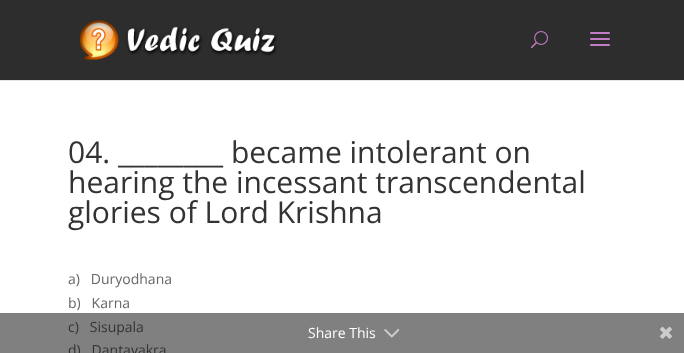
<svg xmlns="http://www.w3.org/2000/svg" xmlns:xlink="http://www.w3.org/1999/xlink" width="684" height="353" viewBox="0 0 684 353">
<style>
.cls-1{font:30px Open Sans;fill:#333333}
.cls-2{font:14px Open Sans;fill:#666666}
.cls-3{font:14px Open Sans;fill:#333333}
.cls-4{font:14px Open Sans;fill:#ffffff}
</style>
<rect width="100%" height="100%" fill="#ffffff"/>
<rect fill="#808080" x="0" y="313" width="684" height="40"/>
<rect fill="#e6e6e6" x="0" y="80" width="684" height="1"/>
<rect fill="#2d2d2d" x="0" y="0" width="684" height="80"/>
<image xlink:href="image0.png" x="80" y="20" width="197" height="40"/>
<image xlink:href="image1.png" x="531" y="31" width="17" height="18"/>
<image xlink:href="image2.png" x="590" y="32" width="20" height="14"/>
<image xlink:href="image3.png" x="384" y="329" width="16" height="9"/>
<image xlink:href="image4.png" x="660" y="326" width="12" height="13"/>
<text class="cls-1"><tspan x="68" y="163">04. ________ became intolerant on</tspan><tspan x="68" y="193">hearing the incessant transcendental</tspan><tspan x="68" y="223">glories of Lord Krishna</tspan></text>
<text class="cls-2" xml:space="preserve"><tspan x="68" y="284">a)   Duryodhana</tspan><tspan x="68" y="308">b)   Karna</tspan></text>
<text class="cls-3" xml:space="preserve"><tspan x="68" y="332">c)   Sisupala</tspan><tspan x="68" y="355">d)   Dantavakra</tspan></text>
<text class="cls-4" x="308" y="338">Share This</text>
</svg>
